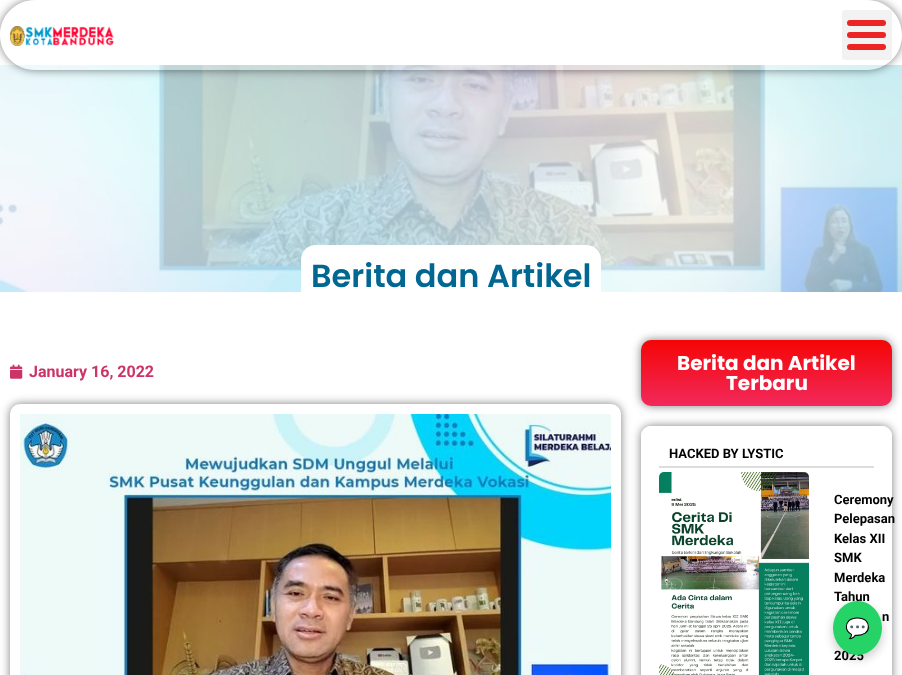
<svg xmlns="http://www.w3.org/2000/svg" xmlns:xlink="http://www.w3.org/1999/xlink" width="902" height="675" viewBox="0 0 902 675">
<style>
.cls-1{font:600 32px Poppins;fill:#006692}
.cls-2{font:bold 16px Roboto;fill:#cc3366}
.cls-3{font:bold 20px Poppins;fill:#ffffff}
.cls-4{font:bold 13px Roboto;fill:#000000}
.cls-5{font:20px Noto Color Emoji;fill:#ffffff}
</style>
<defs>
<clipPath id="clip1"><path d="M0 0H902V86H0ZM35 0H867C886.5 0 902 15.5 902 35C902 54.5 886.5 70 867 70H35C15.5 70 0 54.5 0 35C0 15.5 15.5 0 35 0Z" clip-rule="evenodd"/></clipPath>
<linearGradient id="g1" gradientUnits="userSpaceOnUse" x1="767" y1="340" x2="767" y2="406"><stop offset="0" stop-color="#f40505"/><stop offset="1" stop-color="#f2295b"/></linearGradient>
<clipPath id="clip2"><path d="M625 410H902V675H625ZM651 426H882C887.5 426 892 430.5 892 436V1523C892 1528.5 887.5 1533 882 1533H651C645.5 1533 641 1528.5 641 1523V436C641 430.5 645.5 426 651 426Z" clip-rule="evenodd"/></clipPath>
</defs>
<rect width="100%" height="100%" fill="#ffffff"/>
<image xlink:href="image1.png" x="0" y="65" width="902" height="227"/>
<image xlink:href="image2.png" x="0" y="65" width="902" height="227"/>
<g clip-path="url(#clip1)">
<rect fill="#000000" fill-opacity="0.5" filter="blur(5px)" x="0" y="0" width="902" height="70" rx="35"/>
</g>
<rect fill="#ffffff" fill-opacity="0.26" x="0" y="0" width="902" height="70" rx="35"/>
<image xlink:href="image0.png" x="10" y="26" width="104" height="20"/>
<rect fill="#f2f2f2" x="842" y="10" width="50" height="50" rx="3"/>
<rect fill="#ed2424" x="847" y="32" width="39" height="6" rx="3"/>
<rect fill="#ed2424" x="847" y="20" width="39" height="6" rx="3"/>
<rect fill="#ed2424" x="847" y="44" width="39" height="6" rx="3"/>
<path fill="#ffffff" d="M316 245H586C594.5 245 601 251.5 601 260V292H301V260C301 251.5 307.5 245 316 245Z"/>
<image xlink:href="image3.png" x="10" y="364" width="13" height="15"/>
<rect fill="#000000" fill-opacity="0.5" filter="blur(5px)" x="10" y="404" width="611" height="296" rx="10"/>
<rect fill="none" stroke="#ffffff" stroke-width="10" x="15" y="409" width="601" height="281" rx="5"/>
<image xlink:href="image4.png" x="20" y="414" width="591" height="261"/>
<rect fill="#000000" fill-opacity="0.5" filter="blur(5px)" x="641" y="340" width="251" height="66" rx="10"/>
<rect fill="url(#g1)" x="641" y="340" width="251" height="66" rx="10"/>
<g clip-path="url(#clip2)">
<rect fill="#000000" fill-opacity="0.5" filter="blur(5px)" x="641" y="426" width="251" height="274" rx="10"/>
</g>
<rect fill="none" stroke="#ffffff" stroke-width="3" x="642.5" y="427.5" width="248" height="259" rx="8.5"/>
<rect fill="#dddddd" x="659" y="466" width="215" height="2"/>
<image xlink:href="image5.png" x="659" y="472" width="150" height="203"/>
<rect fill="#000000" fill-opacity="0.2" filter="blur(5px)" x="833" y="605" width="49" height="54" rx="24.5"/>
<text class="cls-1" x="311" y="287">Berita dan Artikel</text>
<text class="cls-2" x="29" y="377">January 16, 2022</text>
<text class="cls-3" x="677" y="370">Berita dan Artikel</text>
<text class="cls-3" x="726" y="390">Terbaru</text>
<text class="cls-4" x="669" y="458">HACKED BY LYSTIC</text>
<text class="cls-4"><tspan x="834" y="504">Ceremony</tspan><tspan x="834" y="523">Pelepasan</tspan><tspan x="834" y="543">Kelas XII</tspan><tspan x="834" y="562">SMK</tspan><tspan x="834" y="582">Merdeka</tspan><tspan x="834" y="601">Tahun</tspan></text>
<text class="cls-4" x="882" y="621">n</text>
<text class="cls-4" x="834" y="660">2025</text>
<ellipse fill="#25d366" cx="857.5" cy="628" rx="24.5" ry="27"/>
<text class="cls-5" x="845" y="635">💬</text>
</svg>
